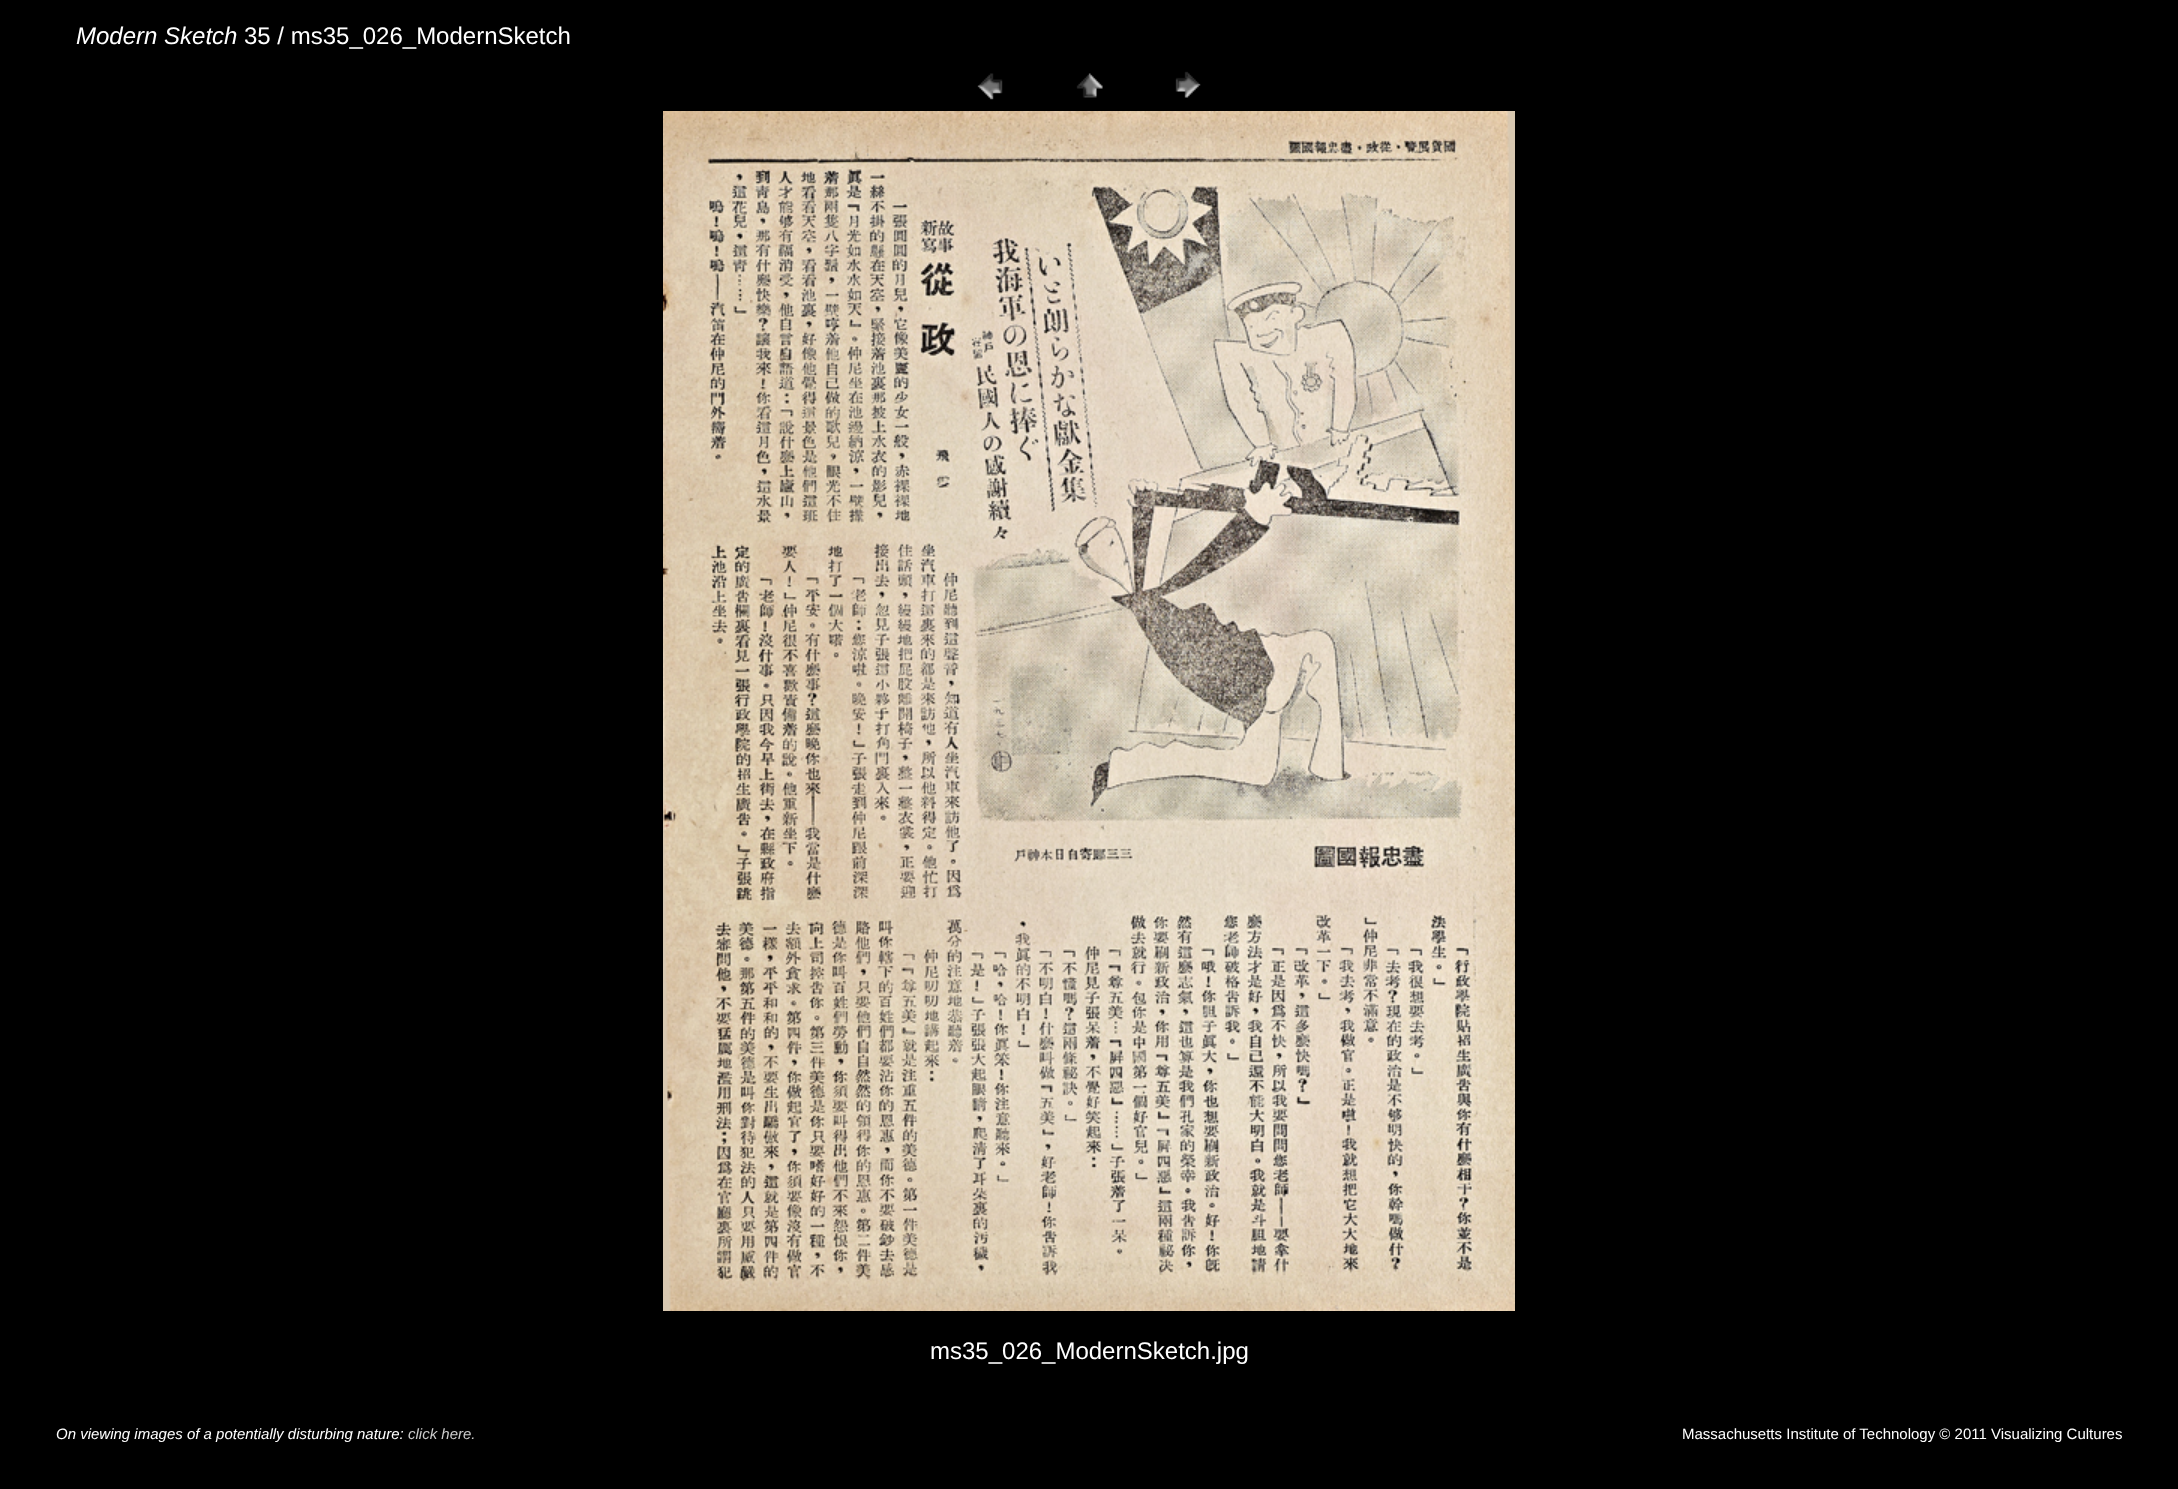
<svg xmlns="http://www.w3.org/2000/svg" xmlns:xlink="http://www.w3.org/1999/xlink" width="2178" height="1489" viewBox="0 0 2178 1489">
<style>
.cls-1{font:italic 24px Liberation Sans;fill:#ffffff}
.cls-2{font:24px Liberation Sans;fill:#ffffff}
.cls-3{font:italic 15px Liberation Sans;fill:#ffffff}
.cls-4{font:italic 15px Liberation Sans;fill:#cccccc}
.cls-5{font:15px Liberation Sans;fill:#ffffff}
</style>
<rect width="100%" height="100%" fill="#000000"/>
<image xlink:href="image0.png" x="977" y="73" width="26" height="27"/>
<image xlink:href="image1.png" x="1076" y="73" width="27" height="25"/>
<image xlink:href="image2.png" x="1175" y="71" width="26" height="27"/>
<image xlink:href="image3.png" x="663" y="111" width="852" height="1200"/>
<text class="cls-1" x="76" y="44">Modern Sketch</text>
<text class="cls-2" x="244" y="44">35 / ms35_026_ModernSketch</text>
<text class="cls-2" x="930" y="1359">ms35_026_ModernSketch.jpg</text>
<text class="cls-3" x="56" y="1439">On viewing images of a potentially disturbing nature:</text>
<text class="cls-4" x="408" y="1439">click here.</text>
<text class="cls-5" x="1682" y="1439">Massachusetts Institute of Technology © 2011 Visualizing Cultures</text>
</svg>
